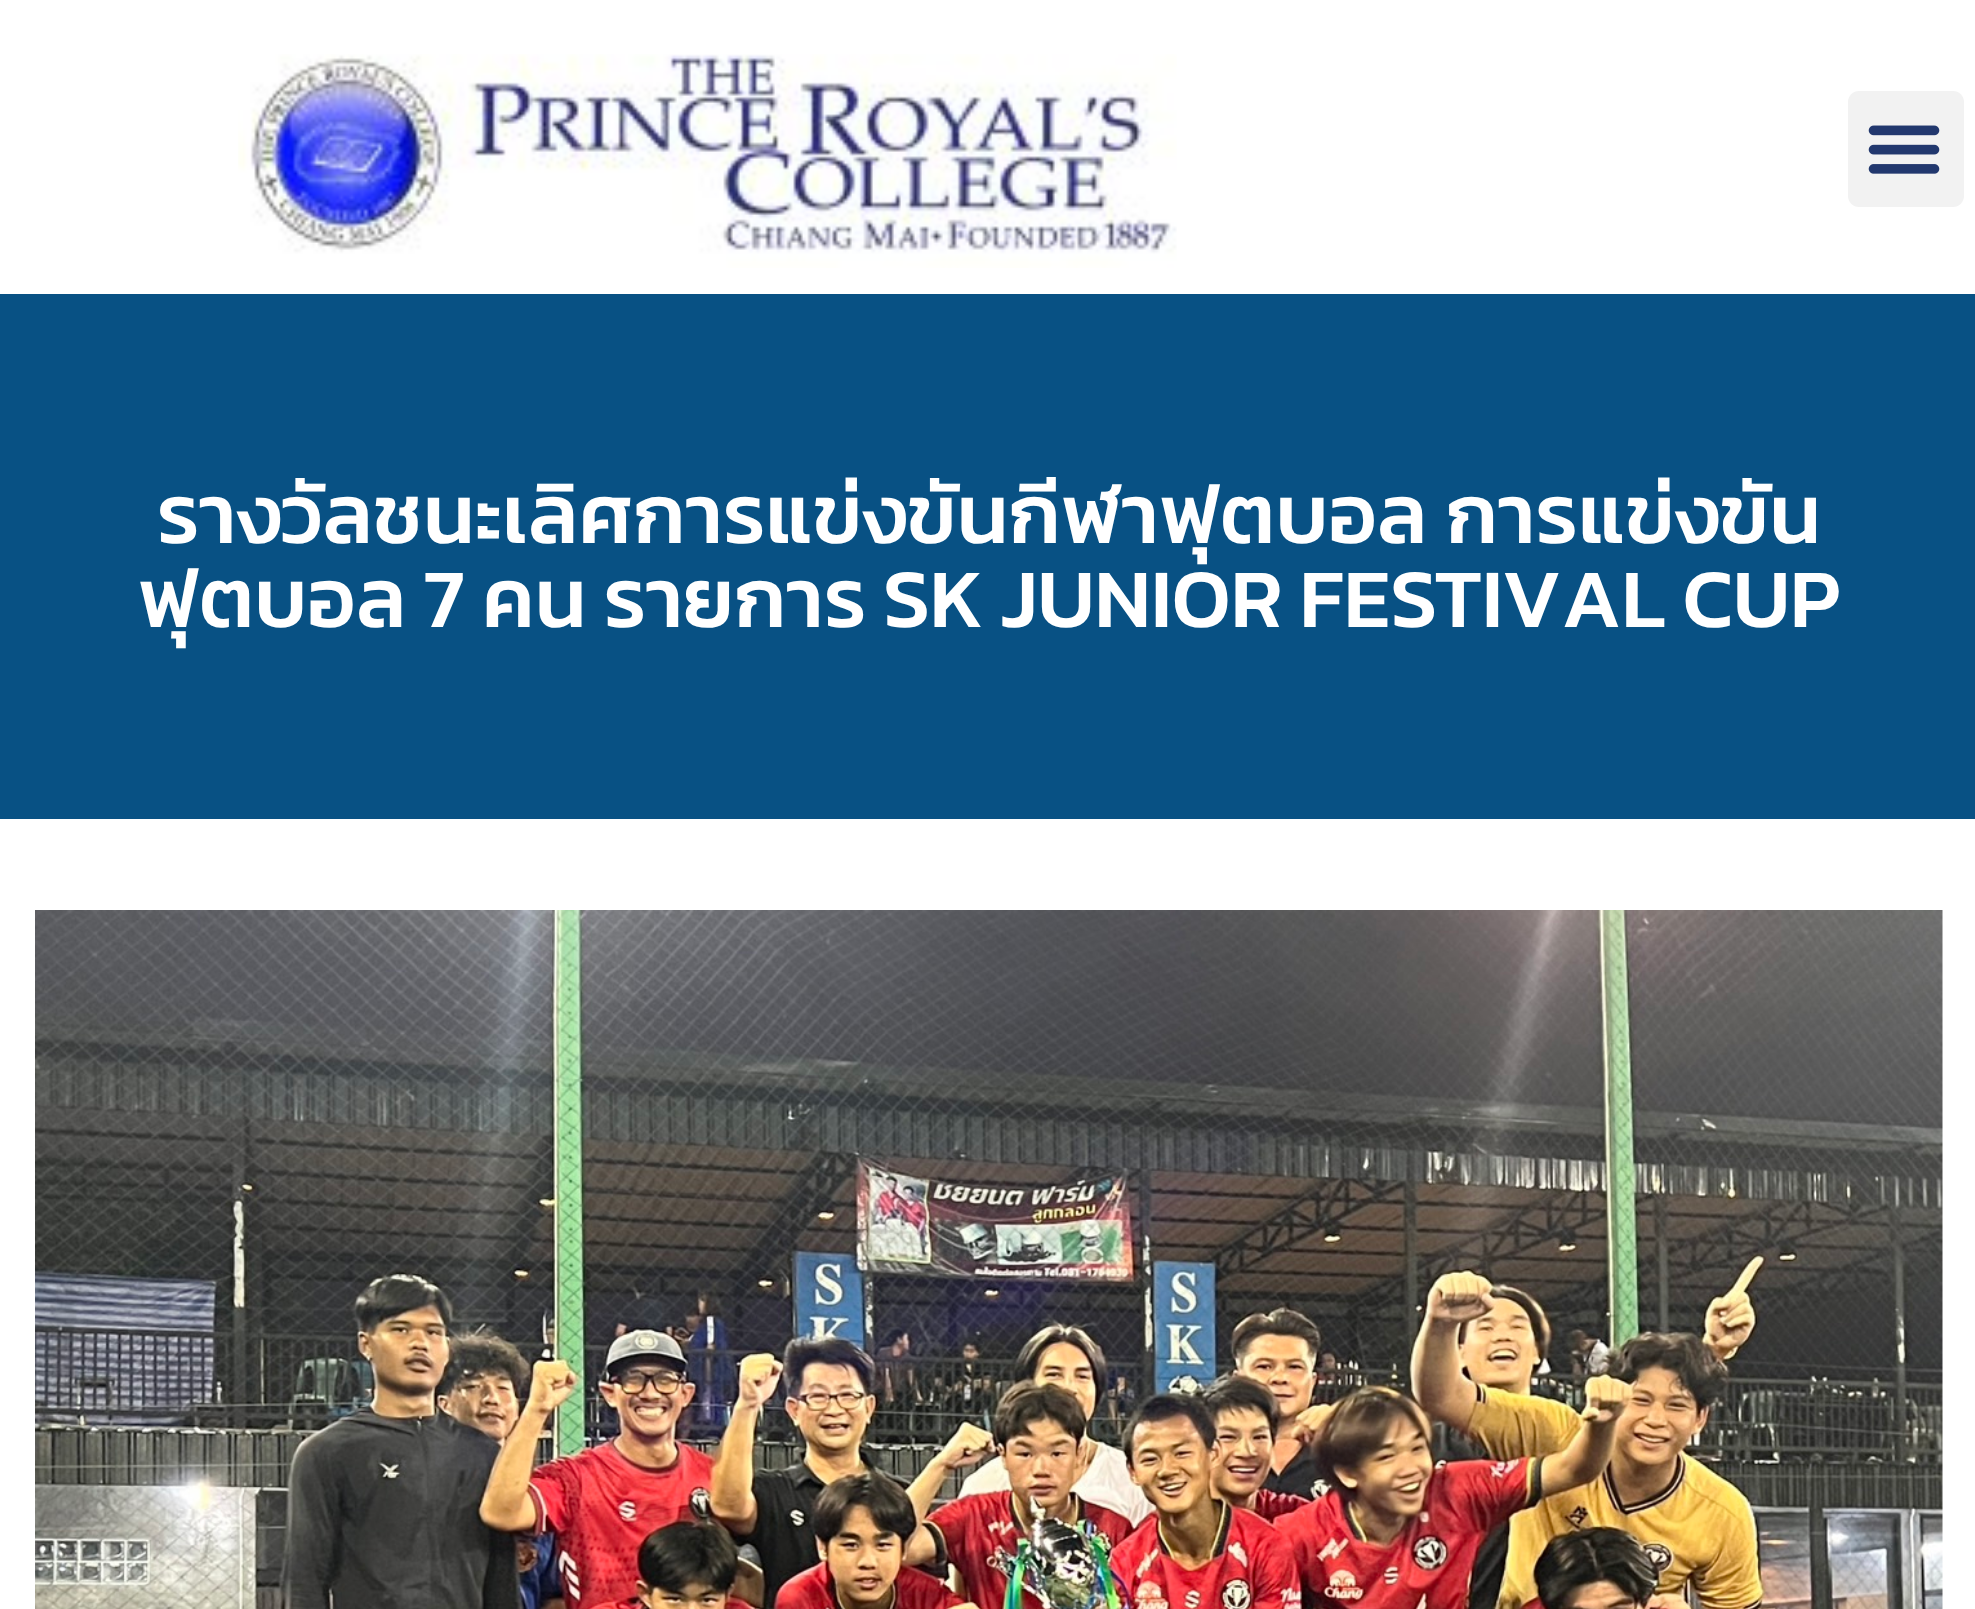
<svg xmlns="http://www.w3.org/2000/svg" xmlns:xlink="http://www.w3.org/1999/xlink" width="1975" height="1609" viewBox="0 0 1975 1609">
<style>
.cls-1{font:500 84px Kanit;fill:#ffffff}
</style>
<rect width="100%" height="100%" fill="#ffffff"/>
<image xlink:href="image0.png" x="238" y="54" width="939" height="214"/>
<rect fill="#f2f2f2" x="1848" y="91" width="116" height="116" rx="11"/>
<image xlink:href="image1.png" x="1868" y="125" width="72" height="49"/>
<rect fill="#085184" x="0" y="294" width="1975" height="525"/>
<image xlink:href="image2.png" x="35" y="910" width="1908" height="699"/>
<text class="cls-1" x="157" y="543">รางวัลชนะเลิศการแข่งขันกีฬาฟุตบอล การแข่งขัน</text>
<text class="cls-1" x="138" y="627" word-spacing="-1.5">ฟุตบอล 7 คน รายการ SK JUNIOR FESTIVAL CUP</text>
</svg>
